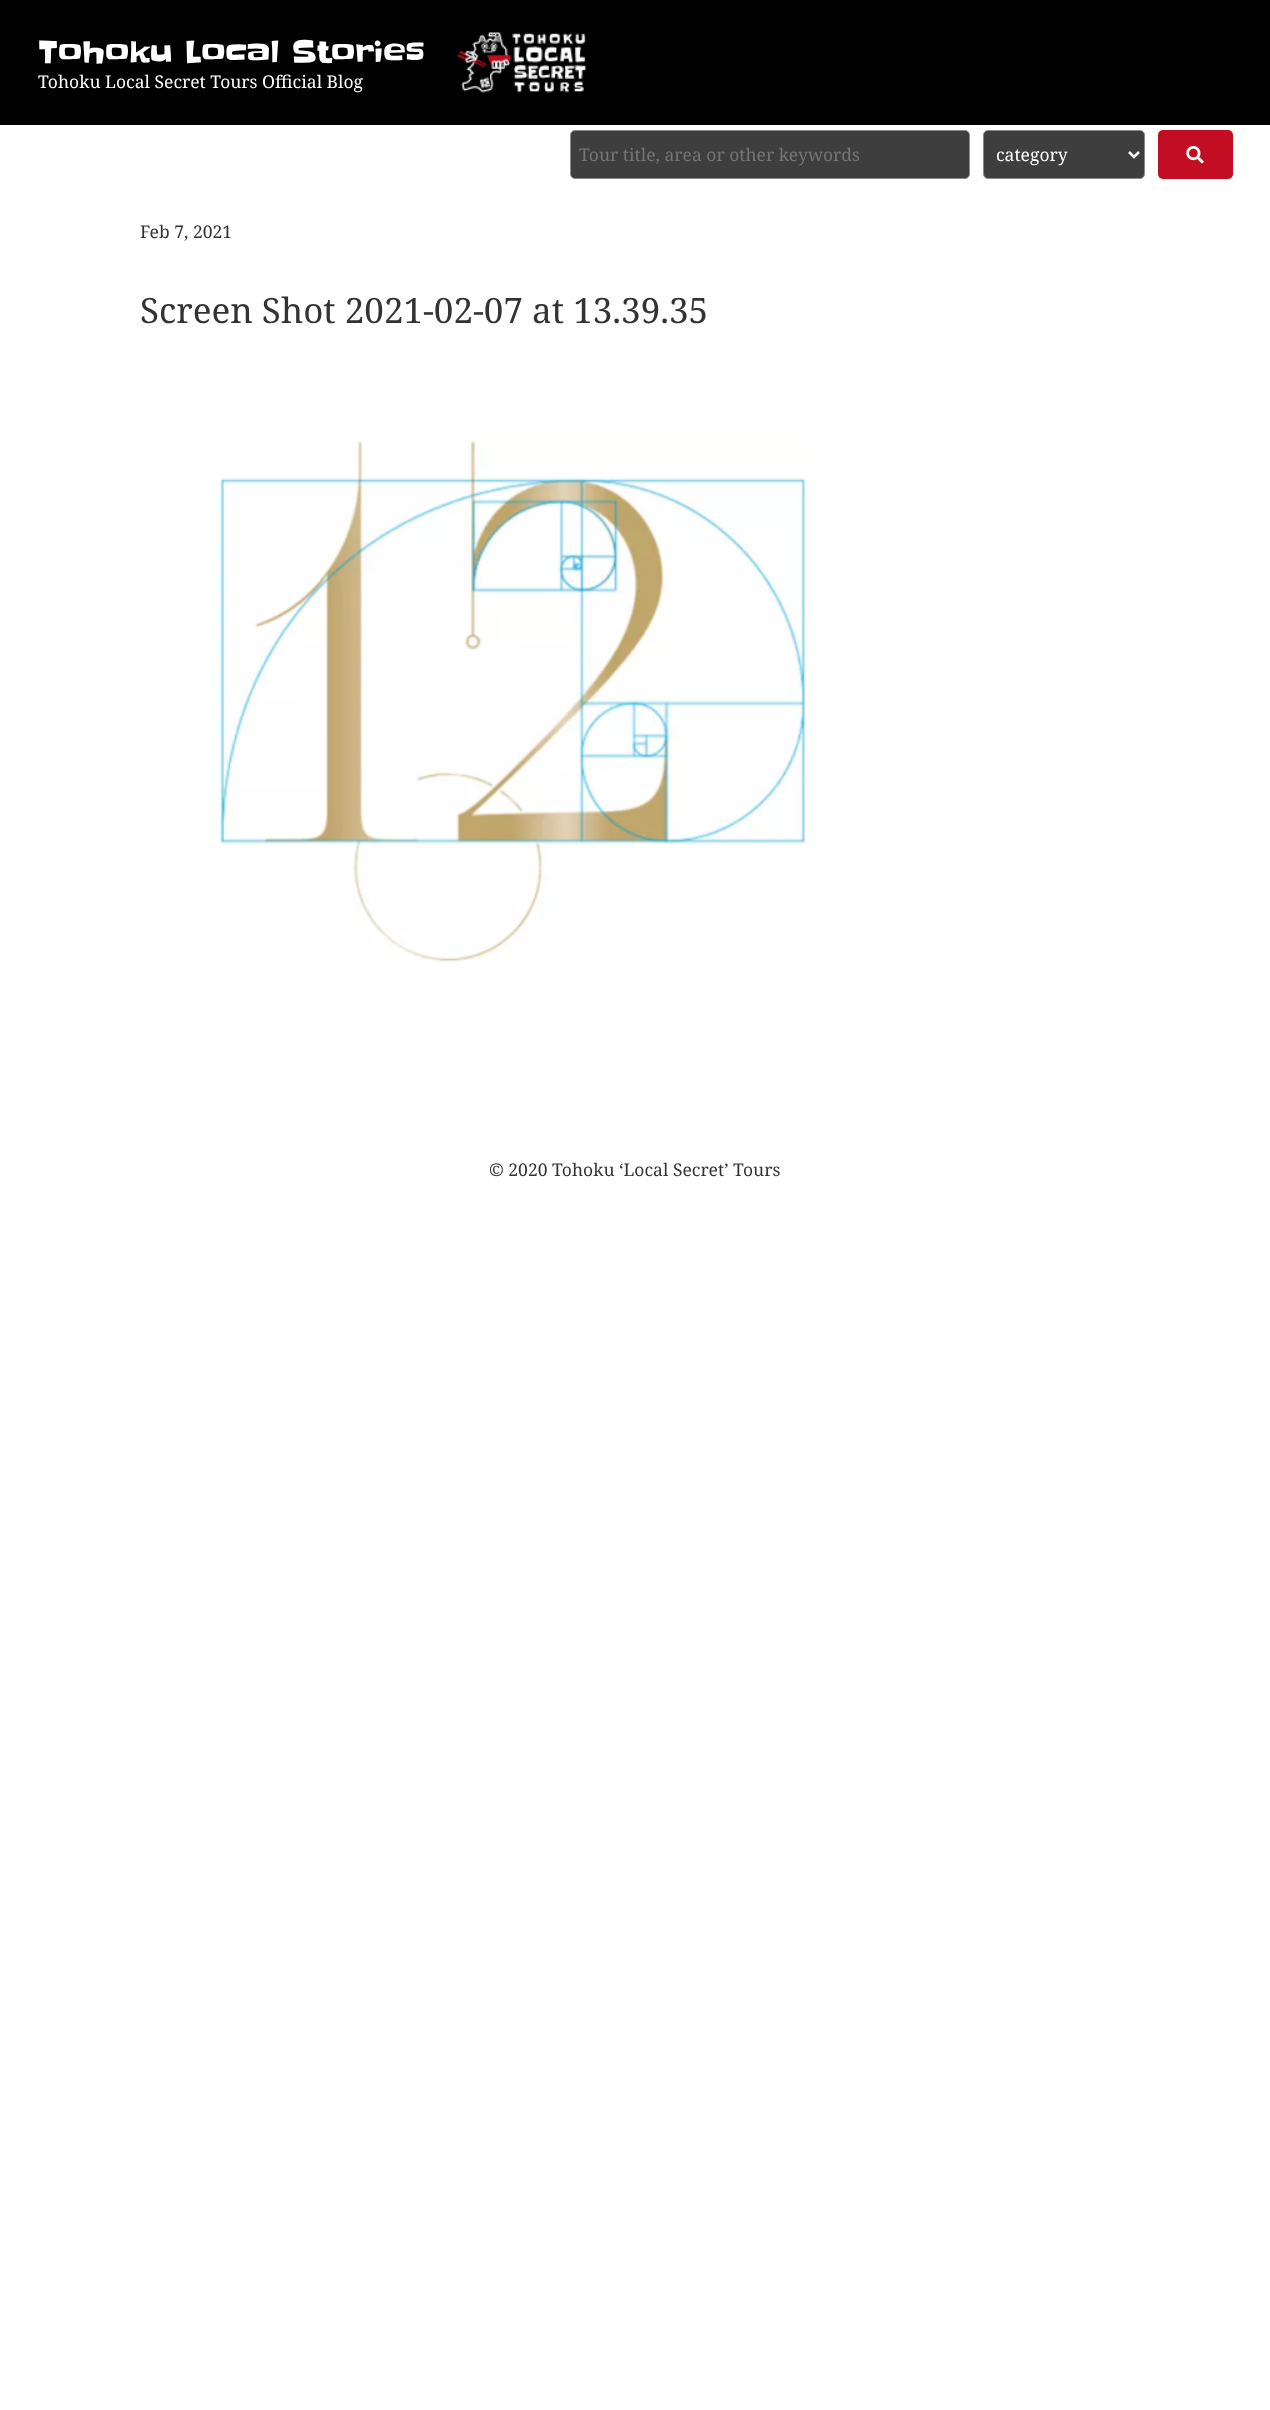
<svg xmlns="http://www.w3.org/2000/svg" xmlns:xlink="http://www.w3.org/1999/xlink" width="1270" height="2410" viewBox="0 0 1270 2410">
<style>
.cls-1{font:30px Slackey;fill:#ffffff}
.cls-2{font:17.5px Noto Serif;fill:#ffffff}
.cls-3{font:17.5px Noto Serif;fill:#757575}
.cls-4{font:17.5px Noto Serif;fill:#333333}
.cls-5{font:35px Noto Serif;fill:#333333}
</style>
<rect width="100%" height="100%" fill="#ffffff"/>
<rect fill="#010101" x="0" y="0" width="1270" height="125"/>
<image xlink:href="image0.png" x="457" y="32" width="130" height="61"/>
<rect fill="#3e3e3e" stroke="#8b8b8b" x="570.5" y="130.5" width="399" height="48" rx="4.5"/>
<rect fill="#3e3e3e" stroke="#8b8b8b" x="983.5" y="130.5" width="161" height="48" rx="4.5"/>
<path fill="none" stroke="#ffffff" stroke-width="2.5" d="M1129 152L1134 157L1139 152"/>
<rect fill="#c30d23" x="1158" y="130" width="75" height="49" rx="5"/>
<image xlink:href="image1.png" x="1186" y="145" width="18" height="19"/>
<image xlink:href="image2.png" x="219" y="436" width="588" height="526"/>
<text class="cls-1" x="38" y="63">Tohoku Local Stories</text>
<text class="cls-2" x="38" y="88">Tohoku Local Secret Tours Official Blog</text>
<text class="cls-3" x="579" y="161">Tour title, area or other keywords</text>
<text class="cls-2" x="996" y="161">category</text>
<text class="cls-4" x="140" y="238">Feb 7, 2021</text>
<text class="cls-5" x="140" y="323">Screen Shot 2021-02-07 at 13.39.35</text>
<text class="cls-4" x="489" y="1176">© 2020 Tohoku ‘Local Secret’ Tours</text>
</svg>
